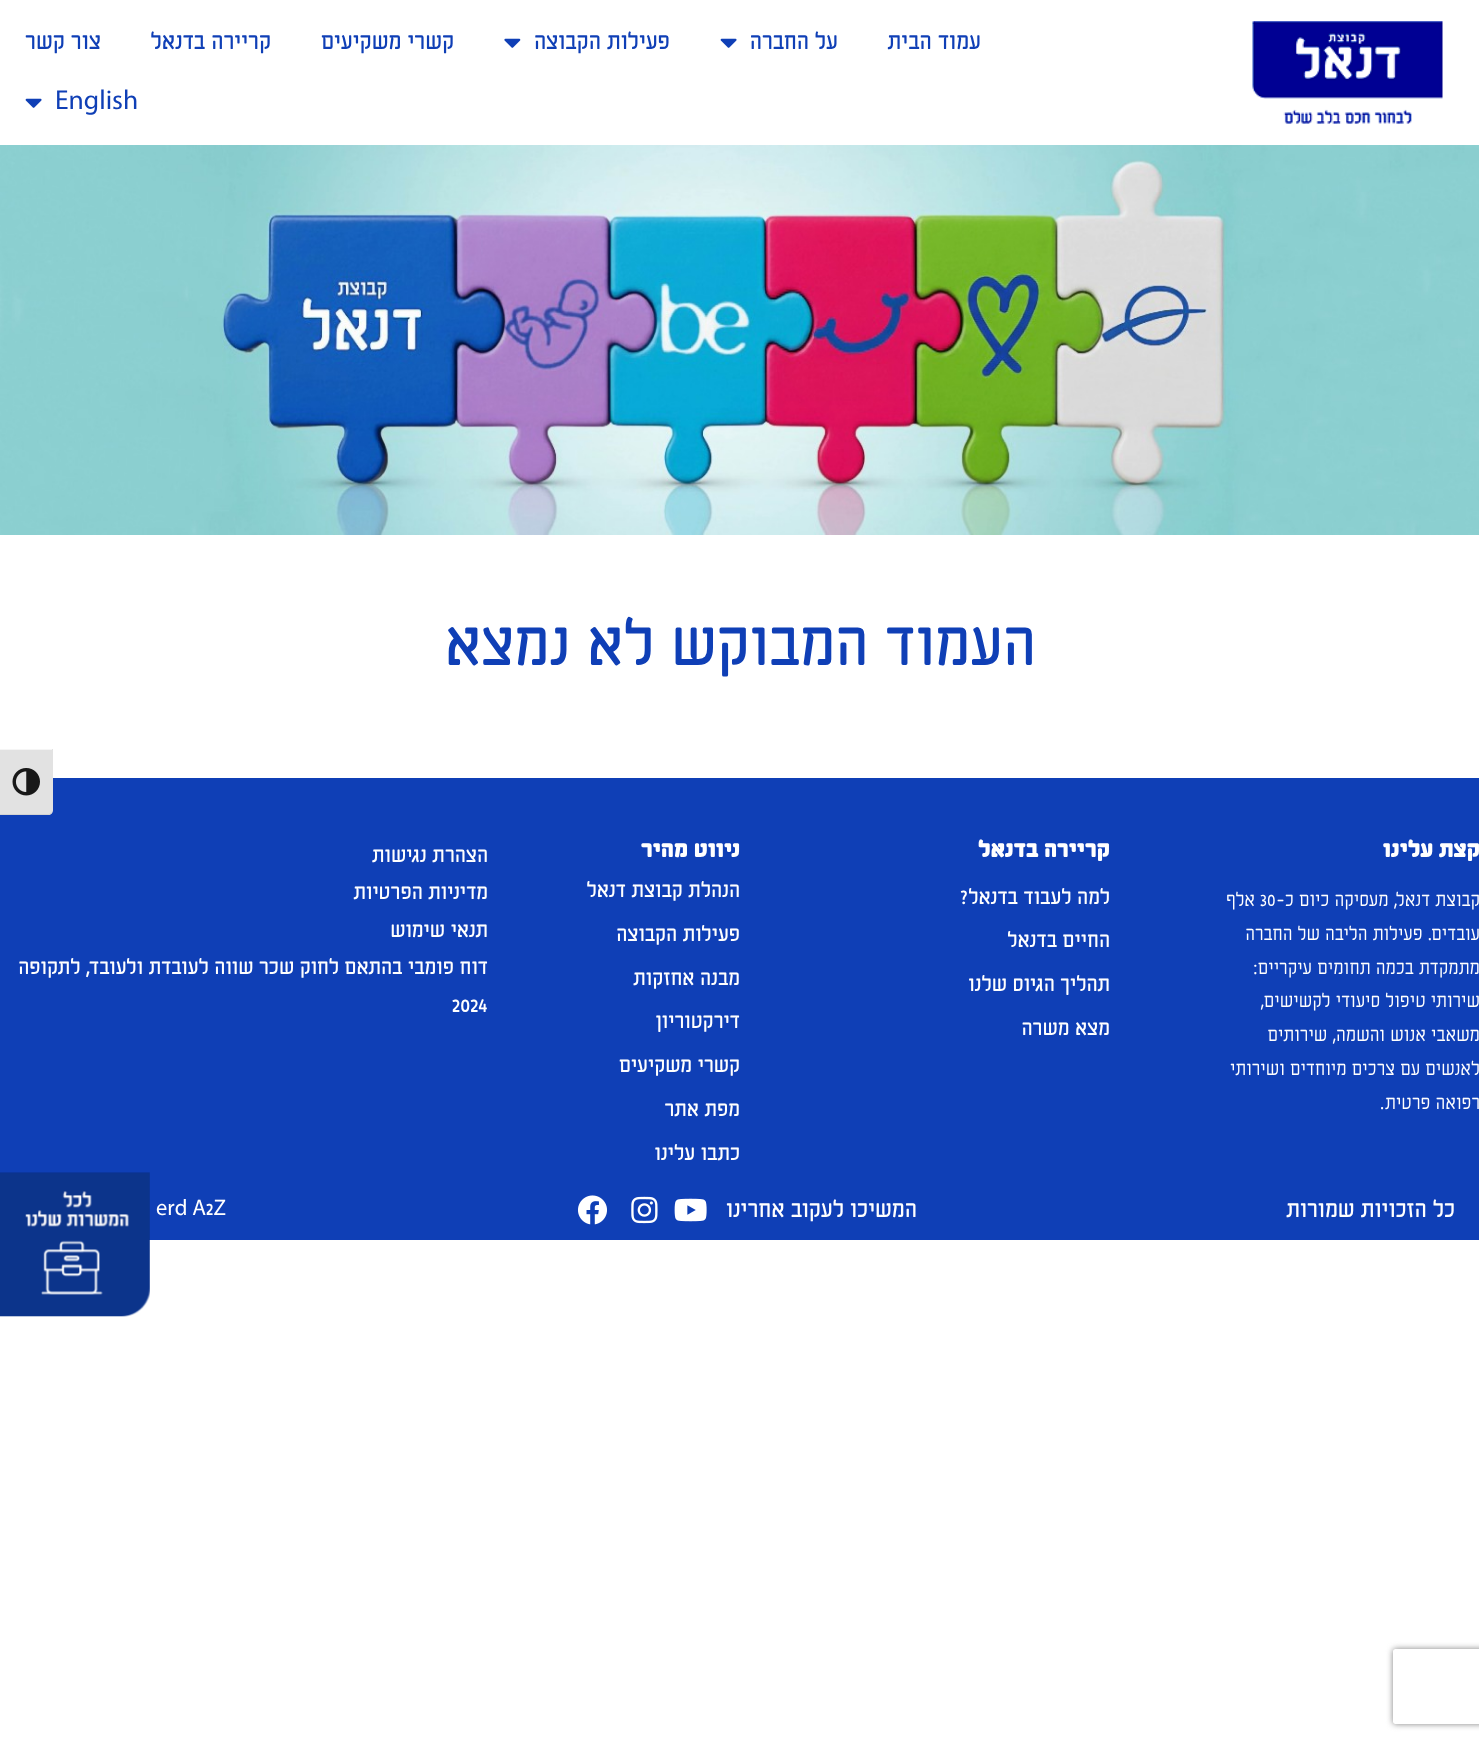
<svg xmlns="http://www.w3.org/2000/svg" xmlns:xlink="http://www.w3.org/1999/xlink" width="1479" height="1741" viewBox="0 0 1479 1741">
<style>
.cls-1{font:27.5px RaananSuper;direction:rtl;fill:#0f3fb6}
.cls-2{font:27.5px RaananSuper;fill:#0f3fb6}
.cls-3{font:75px RaananSuper;direction:rtl;fill:#0f3fb6}
.cls-4{font:800 27.5px RaananSuper;direction:rtl;fill:#ffffff}
.cls-5{font:300 22.5px RaananSuper;direction:rtl;fill:#ffffff}
.cls-6{font:300 22.5px RaananSuper;fill:#ffffff}
.cls-7{font:25px RaananSuper;direction:rtl;fill:#ffffff}
.cls-8{font:25px RaananSuper;fill:#ffffff}
.cls-9{font:27.5px RaananSuper;direction:rtl;fill:#ffffff}
.cls-10{font:22.5px RaananSuper;fill:#ffffff}
</style>
<defs>
<clipPath id="clip1"><path d="M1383 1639H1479V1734H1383ZM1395.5 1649H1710.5C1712 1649 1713 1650 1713 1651.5V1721.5C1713 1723 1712 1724 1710.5 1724H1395.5C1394 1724 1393 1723 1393 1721.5V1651.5C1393 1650 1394 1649 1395.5 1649Z" clip-rule="evenodd"/></clipPath>
</defs>
<rect width="100%" height="100%" fill="#ffffff"/>
<image xlink:href="image0.png" x="1252" y="21" width="191" height="103"/>
<image xlink:href="image1.png" x="720" y="38" width="17" height="10"/>
<image xlink:href="image2.png" x="504" y="38" width="17" height="10"/>
<image xlink:href="image1.png" x="25" y="98" width="17" height="10"/>
<image xlink:href="image3.png" x="0" y="145" width="1479" height="390"/>
<rect fill="#0f3fb6" x="0" y="778" width="1479" height="462"/>
<path fill="#e2e2e2" d="M0 749H53V810C53 813 51 815 48 815H0Z"/>
<rect fill="#f5f5f5" x="0" y="749" width="52" height="1"/>
<path fill="#d2d2d2" d="M48 815C50 815 52 813 52 810C52 812 50 814 48 814H0V815Z"/>
<image xlink:href="image4.png" x="12" y="768" width="28" height="28"/>
<image xlink:href="image5.png" x="674" y="1198" width="33" height="24"/>
<image xlink:href="image6.png" x="631" y="1196" width="27" height="28"/>
<image xlink:href="image7.png" x="578" y="1195" width="29" height="30"/>
<image xlink:href="image8.png" x="0" y="1172" width="150" height="145"/>
<g clip-path="url(#clip1)">
<rect fill="#808080" filter="blur(3px)" x="1393" y="1649" width="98" height="75" rx="2.5"/>
</g>
<text class="cls-1" x="981" y="49">עמוד הבית</text>
<text class="cls-1" x="838" y="49">על החברה</text>
<text class="cls-1" x="670" y="49">פעילות הקבוצה</text>
<text class="cls-1" x="454" y="49">קשרי משקיעים</text>
<text class="cls-1" x="271" y="49">קריירה בדנאל</text>
<text class="cls-1" x="101" y="49">צור קשר</text>
<text class="cls-2" x="55" y="109">English</text>
<text class="cls-3" x="1036" y="665">העמוד המבוקש לא נמצא</text>
<text class="cls-4" x="1480" y="857">קצת עלינו</text>
<text class="cls-5" x="1480" y="906">קבוצת דנאל, מעסיקה כיום כ-</text>
<text class="cls-6" x="1260" y="906">30</text>
<text class="cls-5" x="1255" y="906">אלף</text>
<text class="cls-5"><tspan x="1480" y="940">עובדים. פעילות הליבה של החברה</tspan><tspan x="1480" y="974">מתמקדת בכמה תחומים עיקריים:</tspan><tspan x="1480" y="1007">שירותי טיפול סיעודי לקשישים,</tspan><tspan x="1480" y="1041">משאבי אנוש והשמה, שירותים</tspan><tspan x="1480" y="1075">לאנשים עם צרכים מיוחדים ושירותי</tspan><tspan x="1480" y="1109">רפואה פרטית.</tspan></text>
<text class="cls-4" x="1110" y="857">קריירה בדנאל</text>
<text class="cls-7"><tspan x="1110" y="904">למה לעבוד בדנאל?</tspan><tspan x="1110" y="947">החיים בדנאל</tspan><tspan x="1110" y="991">תהליך הגיוס שלנו</tspan><tspan x="1110" y="1035">מצא משרה</tspan></text>
<text class="cls-4" x="740" y="857">ניווט מהיר</text>
<text class="cls-7"><tspan x="740" y="897">הנהלת קבוצת דנאל</tspan><tspan x="740" y="941">פעילות הקבוצה</tspan><tspan x="740" y="985">מבנה אחזקות</tspan><tspan x="740" y="1028">דירקטוריון</tspan><tspan x="740" y="1072">קשרי משקיעים</tspan><tspan x="740" y="1116">מפת אתר</tspan><tspan x="740" y="1160">כתבו עלינו</tspan></text>
<text class="cls-7"><tspan x="488" y="862">הצהרת נגישות</tspan><tspan x="488" y="899">מדיניות הפרטיות</tspan><tspan x="488" y="937">תנאי שימוש</tspan><tspan x="488" y="974">דוח פומבי בהתאם לחוק שכר שווה לעובדת ולעובד, לתקופה</tspan></text>
<text class="cls-8" x="452" y="1012">2024</text>
<text class="cls-9" x="1455" y="1217">כל הזכויות שמורות</text>
<text class="cls-9" x="917" y="1217">המשיכו לעקוב אחרינו</text>
<text class="cls-10" x="156" y="1215">erd A2Z</text>
</svg>
